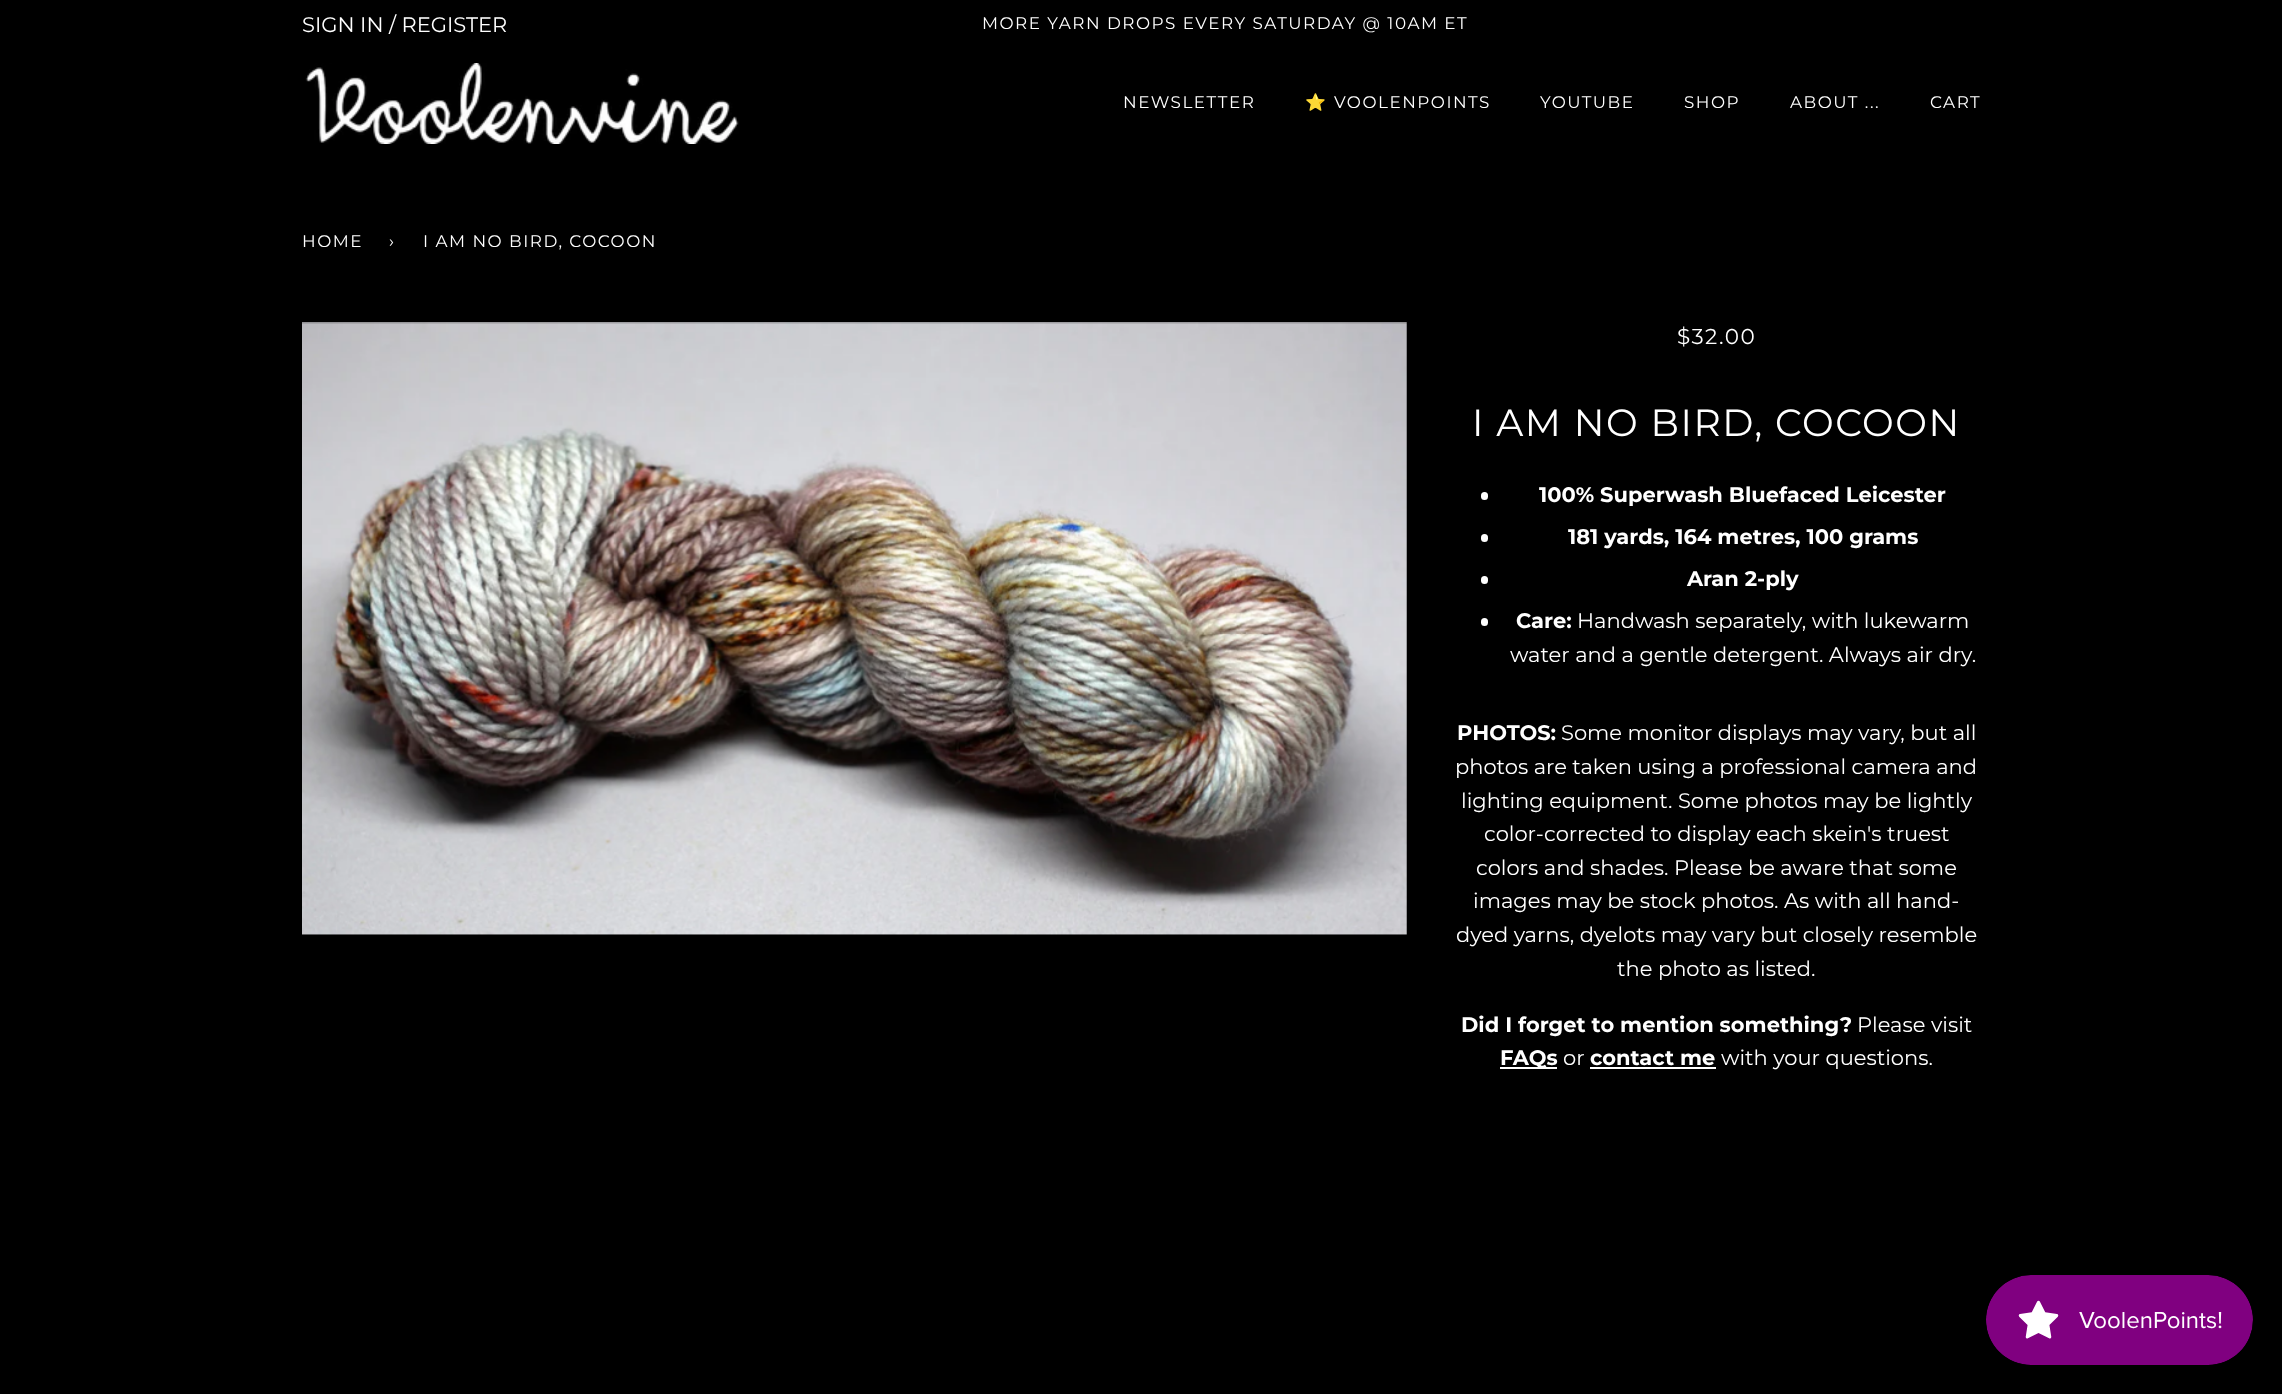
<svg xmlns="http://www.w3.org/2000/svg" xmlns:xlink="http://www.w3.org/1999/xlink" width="2282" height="1394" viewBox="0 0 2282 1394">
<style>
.cls-1{font:21px Montserrat;fill:#ffffff}
.cls-2{font:16.8px Montserrat;letter-spacing:1.5px;fill:#ffffff}
.cls-3{font:16.8px Noto Color Emoji;letter-spacing:1.5px;fill:#ffffff}
.cls-4{font:21.5px Montserrat;letter-spacing:1.5px;fill:#ffffff}
.cls-5{font:37.75px Montserrat;letter-spacing:1.5px;fill:#ffffff}
.cls-6{font:bold 21px Montserrat;fill:#ffffff}
</style>
<rect width="100%" height="100%" fill="#000000"/>
<image xlink:href="image0.png" x="305" y="63" width="434" height="81"/>
<image xlink:href="image1.png" x="302" y="322" width="1105" height="613"/>
<rect fill="#ffffff" x="1481" y="492" width="7" height="8" rx="3.5"/>
<rect fill="#ffffff" x="1481" y="534" width="7" height="8" rx="3.5"/>
<rect fill="#ffffff" x="1481" y="576" width="7" height="8" rx="3.5"/>
<rect fill="#ffffff" x="1481" y="618" width="7" height="8" rx="3.5"/>
<rect fill="#ffffff" x="1500" y="1067" width="57" height="2"/>
<rect fill="#ffffff" x="1590" y="1067" width="126" height="2"/>
<image xlink:href="image2.png" x="1986" y="1275" width="267" height="90"/>
<text class="cls-1" x="302" y="32">SIGN IN / REGISTER</text>
<text class="cls-2" x="982" y="29">MORE YARN DROPS EVERY SATURDAY @ 10AM ET</text>
<text class="cls-2" x="1123" y="108">NEWSLETTER</text>
<text class="cls-3" x="1305" y="108">⭐️</text>
<text class="cls-2" x="1334" y="108">VOOLENPOINTS</text>
<text class="cls-2" x="1540" y="108">YOUTUBE</text>
<text class="cls-2" x="1684" y="108">SHOP</text>
<text class="cls-2" x="1790" y="108">ABOUT ...</text>
<text class="cls-2" x="1930" y="108">CART</text>
<text class="cls-2" x="302" y="247">HOME</text>
<text class="cls-2" x="389" y="247">›</text>
<text class="cls-2" x="423" y="247">I AM NO BIRD, COCOON</text>
<text class="cls-4" x="1677" y="344">$32.00</text>
<text class="cls-5" x="1472" y="436">I AM NO BIRD, COCOON</text>
<text class="cls-6" x="1539" y="502">100% Superwash Bluefaced Leicester</text>
<text class="cls-6" x="1568" y="544">181 yards, 164 metres, 100 grams</text>
<text class="cls-6" x="1687" y="586">Aran 2-ply</text>
<text class="cls-6" x="1516" y="628">Care:</text>
<text class="cls-1" x="1577" y="628">Handwash separately, with lukewarm</text>
<text class="cls-1" x="1510" y="662">water and a gentle detergent. Always air dry.</text>
<text class="cls-6" x="1457" y="740">PHOTOS:</text>
<text class="cls-1" x="1561" y="740">Some monitor displays may vary, but all</text>
<text class="cls-1" x="1455" y="774">photos are taken using a professional camera and</text>
<text class="cls-1" x="1461" y="808">lighting equipment. Some photos may be lightly</text>
<text class="cls-1" x="1484" y="841">color-corrected to display each skein's truest</text>
<text class="cls-1" x="1476" y="875">colors and shades. Please be aware that some</text>
<text class="cls-1" x="1473" y="908">images may be stock photos. As with all hand-</text>
<text class="cls-1" x="1456" y="942">dyed yarns, dyelots may vary but closely resemble</text>
<text class="cls-1" x="1617" y="976">the photo as listed.</text>
<text class="cls-6" x="1461" y="1032">Did I forget to mention something?</text>
<text class="cls-1" x="1857" y="1032">Please visit</text>
<text class="cls-6" x="1500" y="1065">FAQs</text>
<text class="cls-1" x="1563" y="1065">or</text>
<text class="cls-6" x="1590" y="1065">contact me</text>
<text class="cls-1" x="1721" y="1065">with your questions.</text>
</svg>
